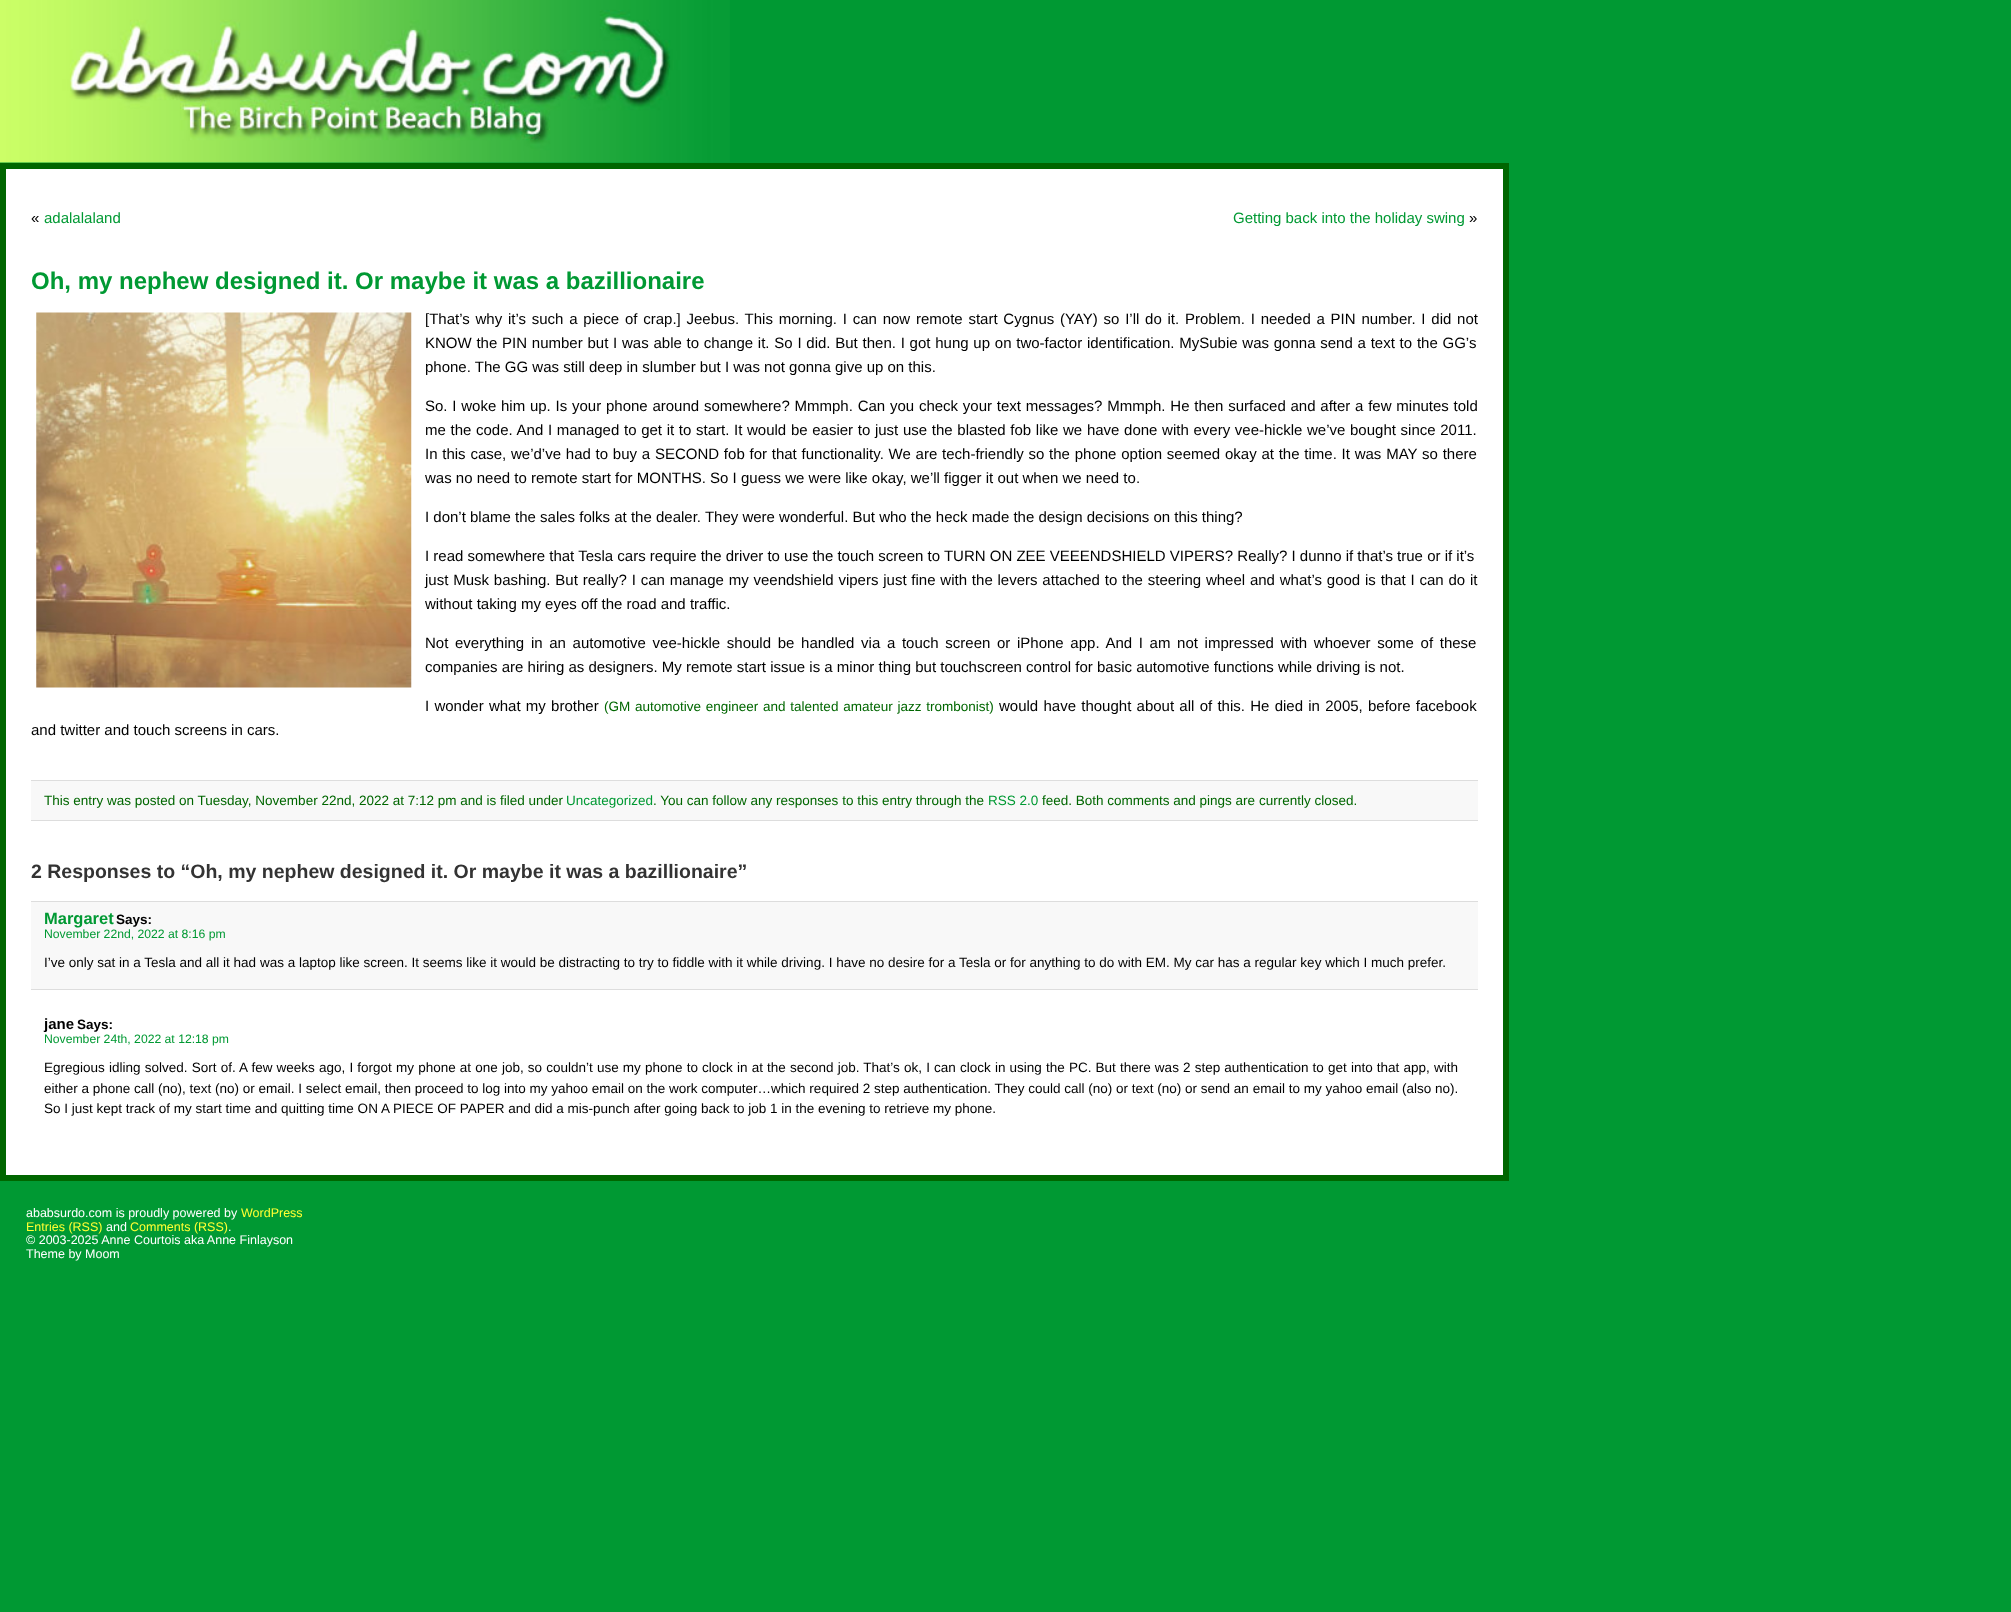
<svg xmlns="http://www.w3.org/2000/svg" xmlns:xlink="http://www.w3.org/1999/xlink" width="2011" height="1612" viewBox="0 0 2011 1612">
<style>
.cls-1{font:15px Liberation Sans;fill:#000000}
.cls-2{font:15px Liberation Sans;fill:#009933}
.cls-3{font:bold 24px Liberation Sans;fill:#009933}
.cls-4{font:13.5px Liberation Sans;fill:#006600}
.cls-5{font:13.5px Liberation Sans;fill:#009933}
.cls-6{font:bold 19.5px Liberation Sans;fill:#333333}
.cls-7{font:bold 16.5px Liberation Sans;fill:#009933}
.cls-8{font:bold 13.5px Liberation Sans;fill:#000000}
.cls-9{font:12.2px Liberation Sans;fill:#009933}
.cls-10{font:13.5px Liberation Sans;fill:#000000}
.cls-11{font:bold 15px Liberation Sans;fill:#000000}
.cls-12{font:12.5px Liberation Sans;fill:#ffffff}
.cls-13{font:12.5px Liberation Sans;fill:#ffff33}
</style>
<rect width="100%" height="100%" fill="#009933"/>
<image xlink:href="image0.png" x="0" y="0" width="730" height="163"/>
<rect fill="#ffffff" stroke="#006600" stroke-width="6" x="3" y="166" width="1503" height="1012"/>
<image xlink:href="image1.png" x="36" y="312" width="376" height="376"/>
<rect fill="#f8f8f8" x="31" y="781" width="1447" height="39"/>
<rect fill="#dddddd" x="31" y="780" width="1447" height="1"/>
<rect fill="#dddddd" x="31" y="820" width="1447" height="1"/>
<rect fill="#f8f8f8" x="31" y="902" width="1447" height="87"/>
<rect fill="#dddddd" x="31" y="901" width="1447" height="1"/>
<rect fill="#dddddd" x="31" y="989" width="1447" height="1"/>
<text class="cls-1" x="31" y="223">«</text>
<text class="cls-2" x="44" y="223">adalalaland</text>
<text class="cls-2" x="1233" y="223">Getting back into the holiday swing</text>
<text class="cls-1" x="1469" y="223">»</text>
<text class="cls-3" x="31" y="289">Oh, my nephew designed it. Or maybe it was a bazillionaire</text>
<text class="cls-1"><tspan x="425" y="324" word-spacing="1.6">[That’s why it’s such a piece of crap.] Jeebus. This morning. I can now remote start Cygnus (YAY) so I’ll do it. Problem. I needed a PIN number. I did not</tspan><tspan x="425" y="348" word-spacing="0.6">KNOW the PIN number but I was able to change it. So I did. But then. I got hung up on two-factor identification. MySubie was gonna send a text to the GG’s</tspan><tspan x="425" y="372">phone. The GG was still deep in slumber but I was not gonna give up on this.</tspan></text>
<text class="cls-1"><tspan x="425" y="411" word-spacing="0.6">So. I woke him up. Is your phone around somewhere? Mmmph. Can you check your text messages? Mmmph. He then surfaced and after a few minutes told</tspan><tspan x="425" y="435" word-spacing="0.5">me the code. And I managed to get it to start. It would be easier to just use the blasted fob like we have done with every vee-hickle we’ve bought since 2011.</tspan><tspan x="425" y="459" word-spacing="0.6">In this case, we’d’ve had to buy a SECOND fob for that functionality. We are tech-friendly so the phone option seemed okay at the time. It was MAY so there</tspan><tspan x="425" y="483">was no need to remote start for MONTHS. So I guess we were like okay, we’ll figger it out when we need to.</tspan></text>
<text class="cls-1" x="425" y="522">I don’t blame the sales folks at the dealer. They were wonderful. But who the heck made the design decisions on this thing?</text>
<text class="cls-1"><tspan x="425" y="561">I read somewhere that Tesla cars require the driver to use the touch screen to TURN ON ZEE VEEENDSHIELD VIPERS? Really? I dunno if that’s true or if it’s</tspan><tspan x="425" y="585" word-spacing="0.65">just Musk bashing. But really? I can manage my veendshield vipers just fine with the levers attached to the steering wheel and what’s good is that I can do it</tspan><tspan x="425" y="609">without taking my eyes off the road and traffic.</tspan></text>
<text class="cls-1"><tspan x="425" y="648" word-spacing="2.5">Not everything in an automotive vee-hickle should be handled via a touch screen or iPhone app. And I am not impressed with whoever some of these</tspan><tspan x="425" y="672">companies are hiring as designers. My remote start issue is a minor thing but touchscreen control for basic automotive functions while driving is not.</tspan></text>
<text class="cls-1" x="425" y="711" word-spacing="1.1">I wonder what my brother</text>
<text class="cls-4" x="604" y="711" word-spacing="1">(GM automotive engineer and talented amateur jazz trombonist)</text>
<text class="cls-1" x="999" y="711" word-spacing="1.1">would have thought about all of this. He died in 2005, before facebook</text>
<text class="cls-1" x="31" y="735">and twitter and touch screens in cars.</text>
<text class="cls-4" x="44" y="805">This entry was posted on Tuesday, November 22nd, 2022 at 7:12 pm and is filed under</text>
<text class="cls-5" x="566" y="805">Uncategorized</text>
<text class="cls-4" x="653" y="805">. You can follow any responses to this entry through the</text>
<text class="cls-5" x="988" y="805">RSS 2.0</text>
<text class="cls-4" x="1042" y="805">feed. Both comments and pings are currently closed.</text>
<text class="cls-6" x="31" y="878">2 Responses to “Oh, my nephew designed it. Or maybe it was a bazillionaire”</text>
<text class="cls-7" x="44" y="924">Margaret</text>
<text class="cls-8" x="116" y="924">Says:</text>
<text class="cls-9" x="44" y="938">November 22nd, 2022 at 8:16 pm</text>
<text class="cls-10" x="44" y="967">I’ve only sat in a Tesla and all it had was a laptop like screen. It seems like it would be distracting to try to fiddle with it while driving. I have no desire for a Tesla or for anything to do with EM. My car has a regular key which I much prefer.</text>
<text class="cls-11" x="44" y="1029">jane</text>
<text class="cls-8" x="77" y="1029">Says:</text>
<text class="cls-9" x="44" y="1043">November 24th, 2022 at 12:18 pm</text>
<text class="cls-10" x="44" y="1072" word-spacing="0.5">Egregious idling solved. Sort of.</text>
<text class="cls-10" x="239" y="1072" word-spacing="0.4">A few weeks ago, I forgot my phone at one job, so couldn’t use my phone to clock in at the second job. That’s ok, I can clock in using the PC. But there was 2 step authentication to get into that app, with</text>
<text class="cls-10"><tspan x="44" y="1093">either a phone call (no), text (no) or email. I select email, then proceed to log into my yahoo email on the work computer…which required 2 step authentication. They could call (no) or text (no) or send an email to my yahoo email (also no).</tspan><tspan x="44" y="1113">So I just kept track of my start time and quitting time ON A PIECE OF PAPER and did a mis-punch after going back to job 1 in the evening to retrieve my phone.</tspan></text>
<text class="cls-12" x="26" y="1217">ababsurdo.com is proudly powered by</text>
<text class="cls-13" x="241" y="1217">WordPress</text>
<text class="cls-13" x="26" y="1231">Entries (RSS)</text>
<text class="cls-12" x="106" y="1231">and</text>
<text class="cls-13" x="130" y="1231">Comments (RSS)</text>
<text class="cls-12" x="228" y="1231">.</text>
<text class="cls-12"><tspan x="26" y="1244">© 2003-2025 Anne Courtois aka Anne Finlayson</tspan><tspan x="26" y="1258">Theme by Moom</tspan></text>
</svg>
